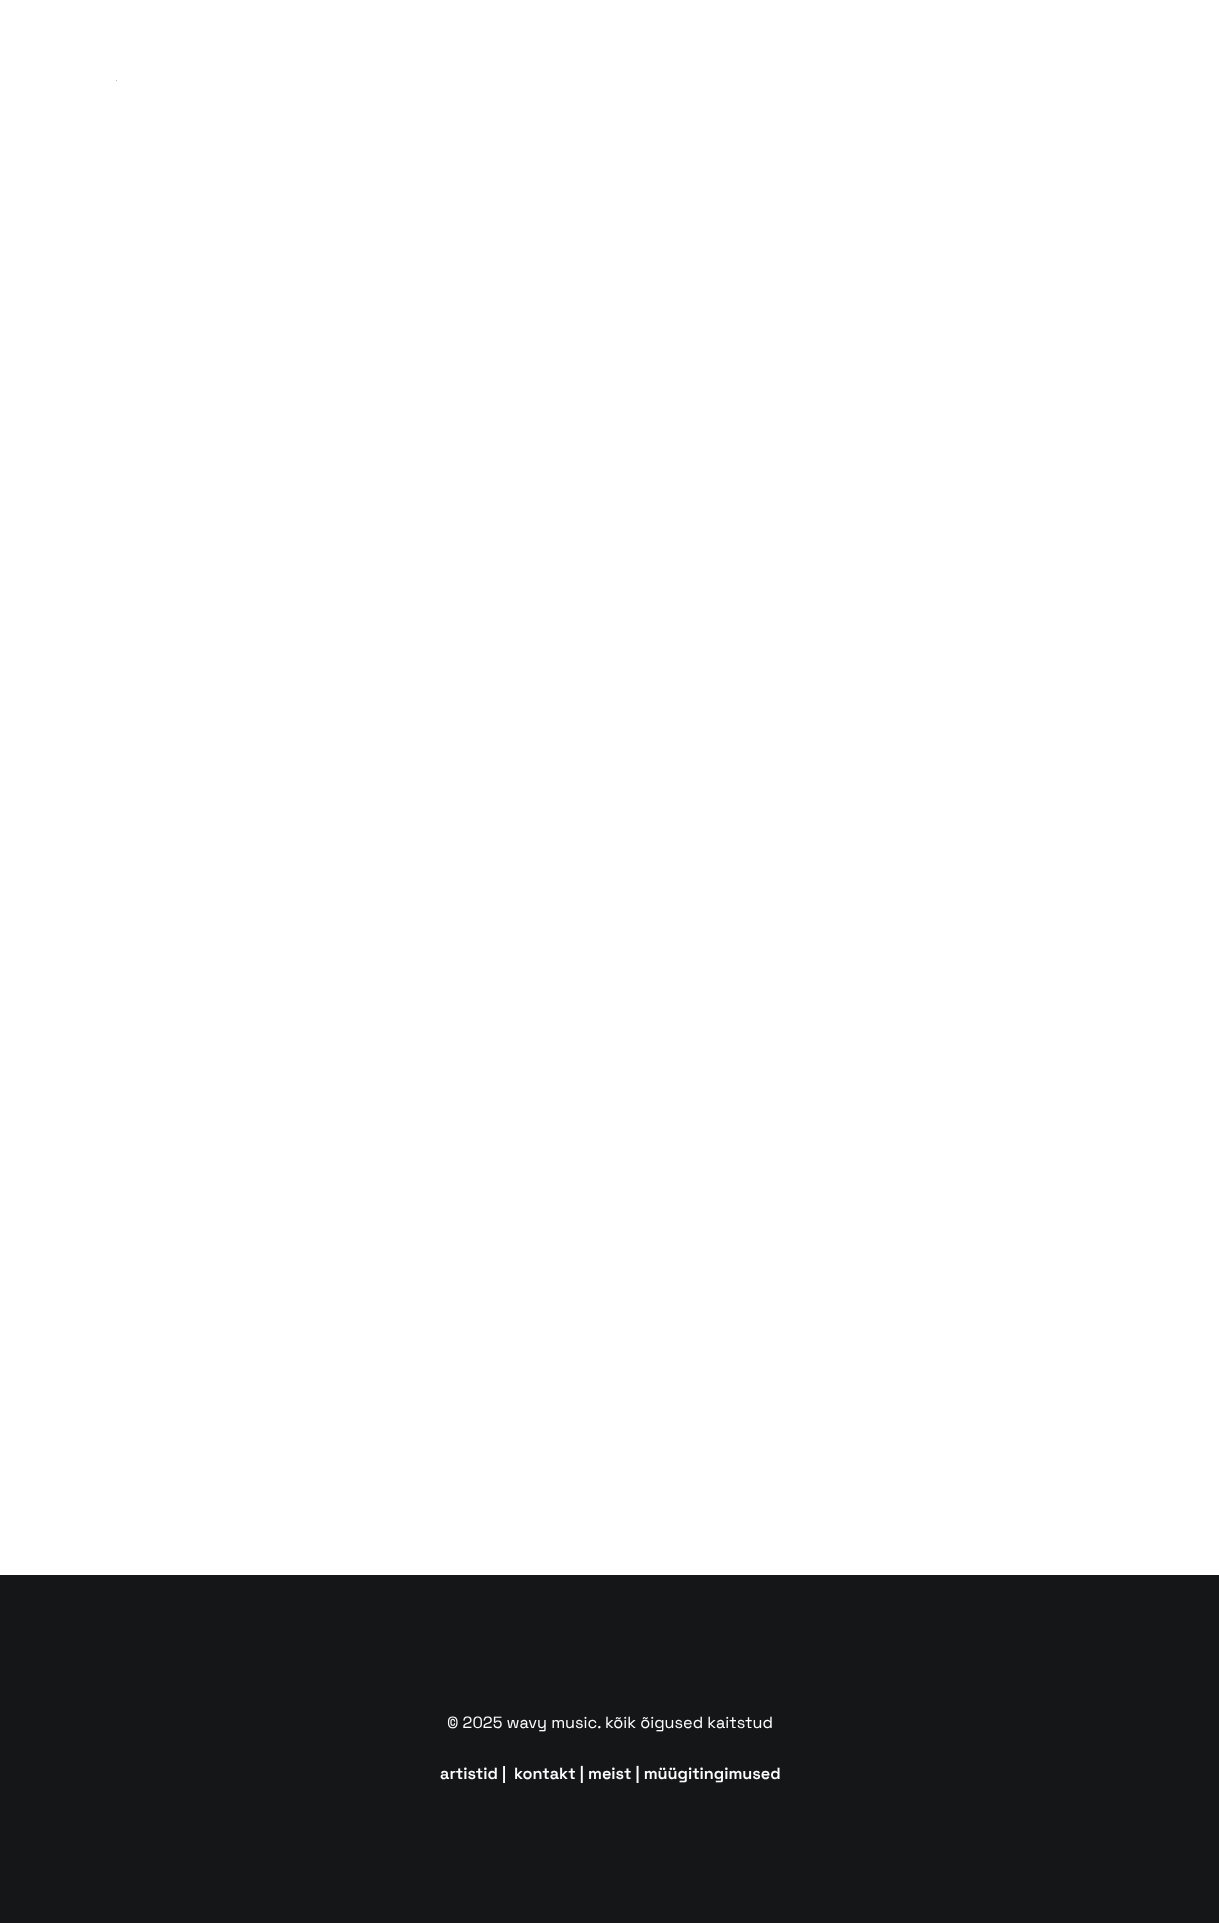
<svg xmlns="http://www.w3.org/2000/svg" xmlns:xlink="http://www.w3.org/1999/xlink" width="1219" height="1923" viewBox="0 0 1219 1923">
<style>
.cls-1{font:16.25px Space Grotesk;fill:#ffffff}
.cls-2{font:600 16.25px Space Grotesk;fill:#ffffff}
</style>
<rect width="100%" height="100%" fill="#141618"/>
<rect fill="#ffffff" x="0" y="0" width="1219" height="1575"/>
<rect fill="#bbbbbc" x="116" y="80" width="1" height="1"/>
<text class="cls-1" x="447" y="1728">© 2025 wavy music. kõik õigused kaitstud</text>
<text class="cls-2" x="440" y="1779">artistid |</text>
<text class="cls-2" x="514" y="1779">kontakt | meist | müügitingimused</text>
</svg>
